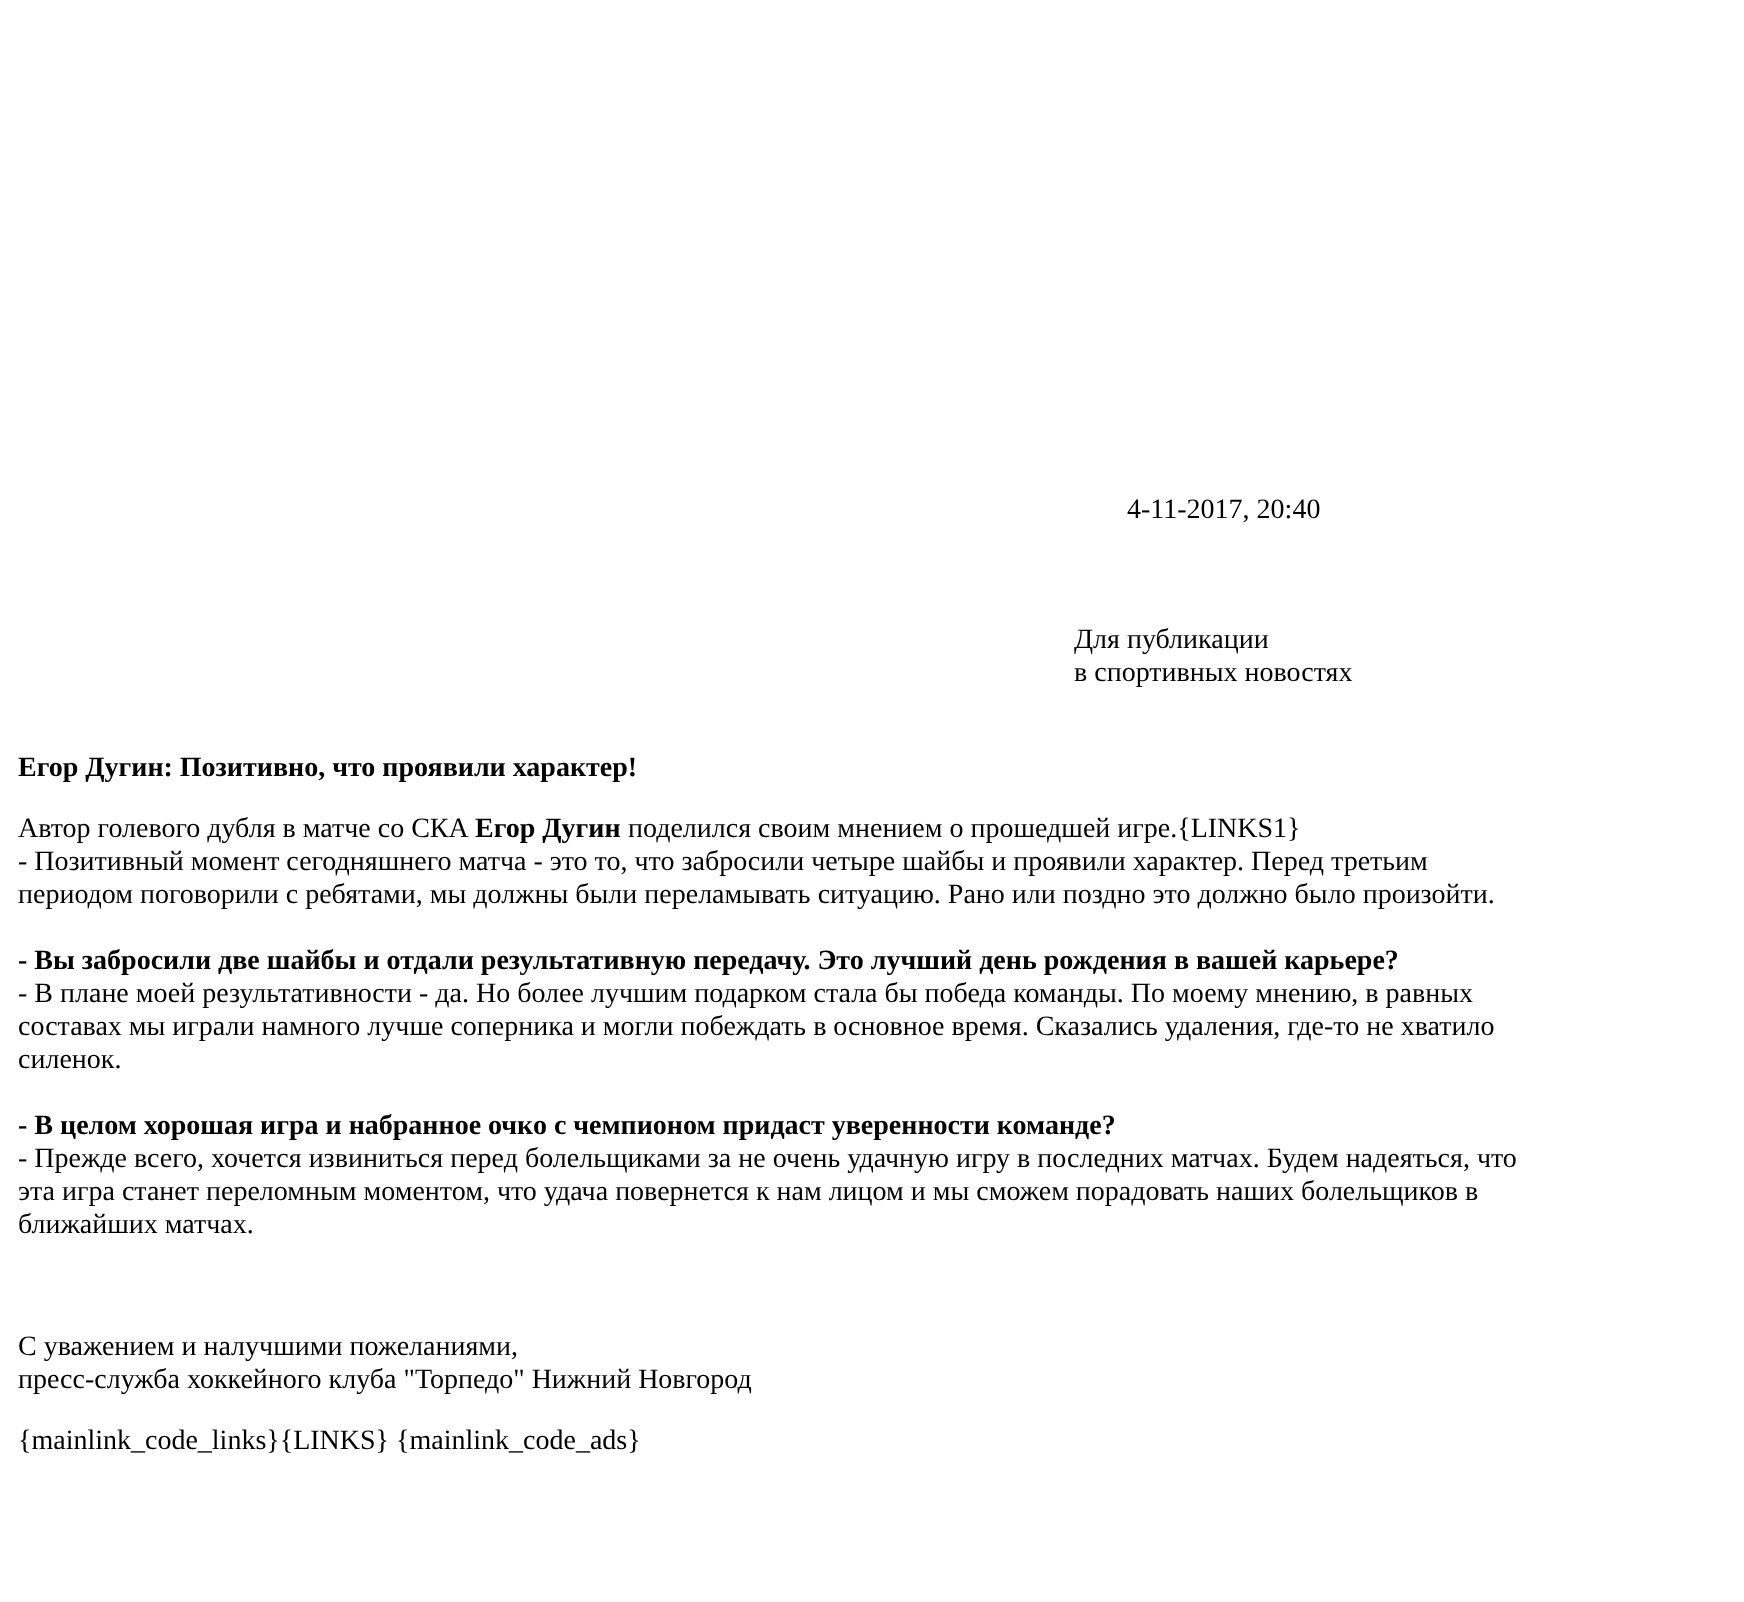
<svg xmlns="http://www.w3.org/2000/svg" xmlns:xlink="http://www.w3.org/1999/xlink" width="1744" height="1602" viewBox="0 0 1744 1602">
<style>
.cls-1{font:28px Liberation Serif;fill:#000000}
.cls-2{font:bold 28px Liberation Serif;fill:#000000}
</style>
<rect width="100%" height="100%" fill="#ffffff"/>
<text class="cls-1" x="1127" y="518">4-11-2017, 20:40</text>
<text class="cls-1"><tspan x="1074" y="648">Для публикации</tspan><tspan x="1074" y="681">в спортивных новостях</tspan></text>
<text class="cls-2" x="18" y="776">Егор Дугин: Позитивно, что проявили характер!</text>
<text class="cls-1" x="18" y="837">Автор голевого дубля в матче со СКА</text>
<text class="cls-2" x="475" y="837">Егор Дугин</text>
<text class="cls-1" x="628" y="837">поделился своим мнением о прошедшей игре.{LINKS1}</text>
<text class="cls-1"><tspan x="18" y="870">- Позитивный момент сегодняшнего матча - это то, что забросили четыре шайбы и проявили характер. Перед третьим</tspan><tspan x="18" y="903">периодом поговорили с ребятами, мы должны были переламывать ситуацию. Рано или поздно это должно было произойти.</tspan></text>
<text class="cls-2" x="18" y="969">- Вы забросили две шайбы и отдали результативную передачу. Это лучший день рождения в вашей карьере?</text>
<text class="cls-1"><tspan x="18" y="1002">- В плане моей результативности - да. Но более лучшим подарком стала бы победа команды. По моему мнению, в равных</tspan><tspan x="18" y="1035">составах мы играли намного лучше соперника и могли побеждать в основное время. Сказались удаления, где-то не хватило</tspan><tspan x="18" y="1068">силенок.</tspan></text>
<text class="cls-2" x="18" y="1134">- В целом хорошая игра и набранное очко с чемпионом придаст уверенности команде?</text>
<text class="cls-1"><tspan x="18" y="1167">- Прежде всего, хочется извиниться перед болельщиками за не очень удачную игру в последних матчах. Будем надеяться, что</tspan><tspan x="18" y="1200">эта игра станет переломным моментом, что удача повернется к нам лицом и мы сможем порадовать наших болельщиков в</tspan><tspan x="18" y="1233">ближайших матчах.</tspan></text>
<text class="cls-1"><tspan x="18" y="1355">С уважением и налучшими пожеланиями,</tspan><tspan x="18" y="1388">пресс-служба хоккейного клуба "Торпедо" Нижний Новгород</tspan></text>
<text class="cls-1" x="18" y="1449">{mainlink_code_links}{LINKS} {mainlink_code_ads}</text>
</svg>
